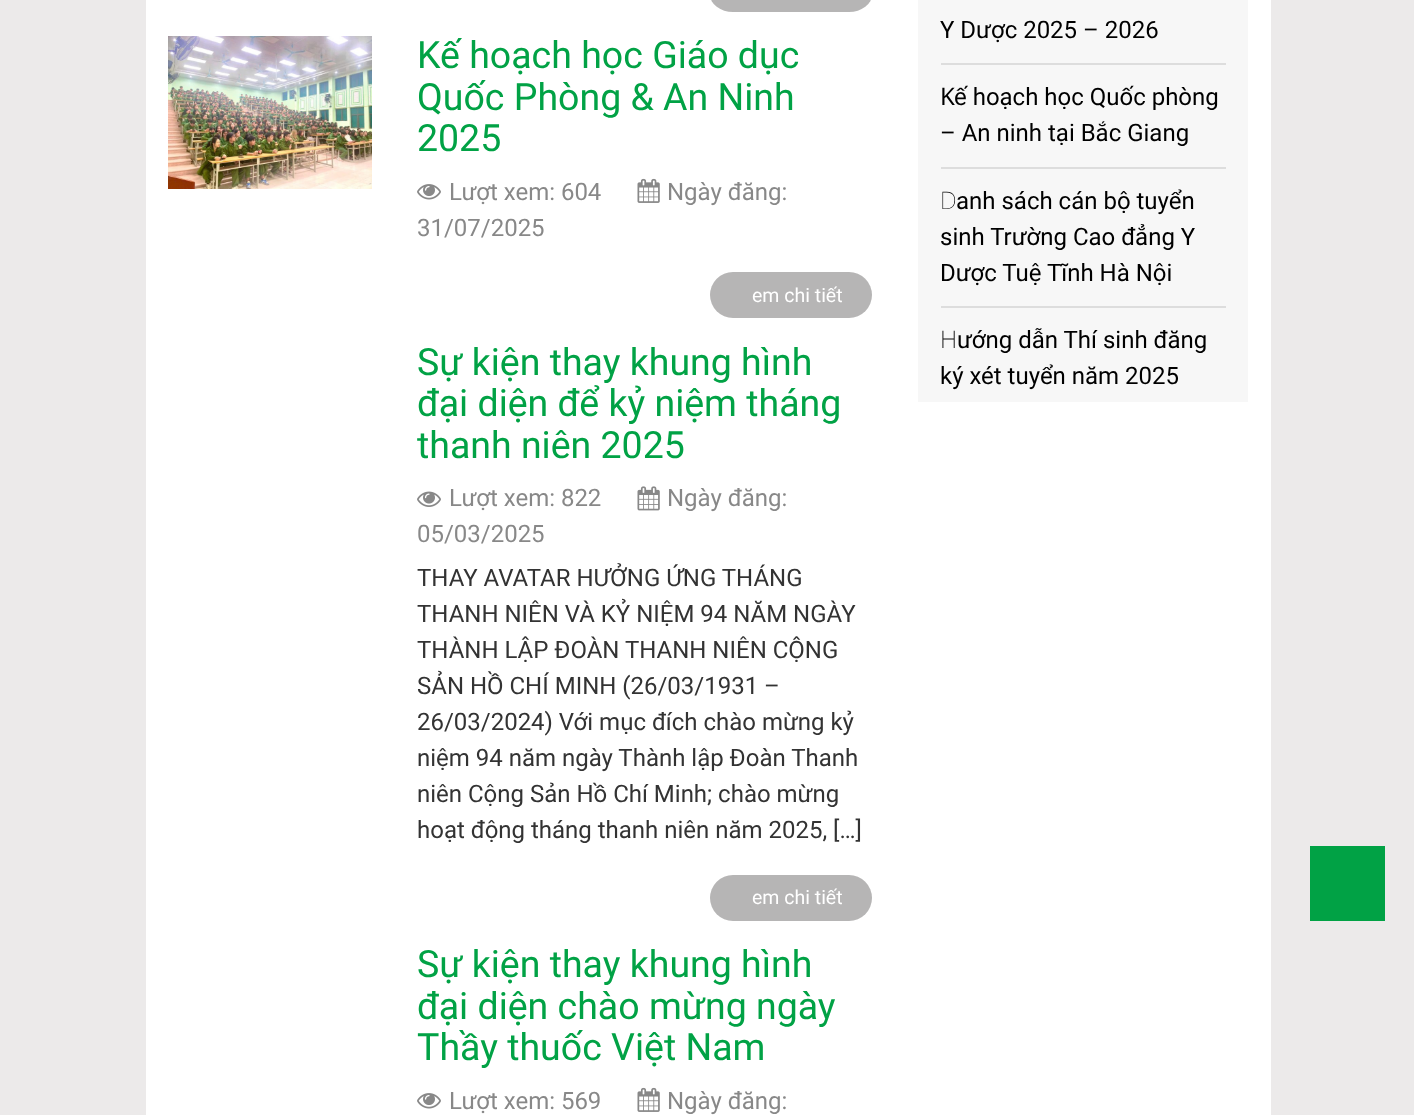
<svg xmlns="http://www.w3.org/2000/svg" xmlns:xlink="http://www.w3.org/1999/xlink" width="1414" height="1115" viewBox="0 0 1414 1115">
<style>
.cls-1{font:37.5px Roboto;fill:#01a245}
.cls-2{font:24px Roboto;fill:#888888}
.cls-3{font:19.5px Roboto;fill:#ffffff}
.cls-4{font:24px Roboto;fill:#333333}
.cls-5{font:24px Roboto;fill:#000000}
.cls-6{font:24px Noto Sans;fill:#000000}
.cls-7{font:100 24px Noto Sans;fill:#000000}
.cls-8{font:200 24px Noto Sans;fill:#000000}
</style>
<rect width="100%" height="100%" fill="#eceaea"/>
<rect fill="#ffffff" x="146" y="0" width="1125" height="1115"/>
<rect fill="#b6b5b5" x="710" y="-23" width="162" height="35" rx="23"/>
<image xlink:href="image0.png" x="168" y="36" width="204" height="153"/>
<image xlink:href="image1.png" x="417" y="184" width="24" height="16"/>
<image xlink:href="image2.png" x="637" y="178" width="23" height="25"/>
<rect fill="#b6b5b5" x="710" y="272" width="162" height="46" rx="23"/>
<image xlink:href="image3.png" x="417" y="491" width="24" height="16"/>
<image xlink:href="image4.png" x="637" y="486" width="23" height="25"/>
<rect fill="#b6b5b5" x="710" y="875" width="162" height="46" rx="23"/>
<image xlink:href="image1.png" x="417" y="1093" width="24" height="16"/>
<image xlink:href="image2.png" x="637" y="1087" width="23" height="25"/>
<rect fill="#f7f7f7" x="918" y="0" width="330" height="402"/>
<rect fill="#dddddd" x="941" y="63" width="285" height="2"/>
<rect fill="#dddddd" x="941" y="167" width="285" height="2"/>
<rect fill="#dddddd" x="941" y="306" width="285" height="2"/>
<rect fill="#01a245" x="1310" y="846" width="75" height="75"/>
<text class="cls-1"><tspan x="417" y="68">Kế hoạch học Giáo dục</tspan><tspan x="417" y="110">Quốc Phòng &amp; An Ninh</tspan><tspan x="417" y="151">2025</tspan></text>
<text class="cls-2" x="449" y="200">Lượt xem: 604</text>
<text class="cls-2" x="667" y="200">Ngày đăng:</text>
<text class="cls-2" x="417" y="236">31/07/2025</text>
<text class="cls-3" x="752" y="302">em chi tiết</text>
<text class="cls-1"><tspan x="417" y="375">Sự kiện thay khung hình</tspan><tspan x="417" y="416">đại diện để kỷ niệm tháng</tspan><tspan x="417" y="458">thanh niên 2025</tspan></text>
<text class="cls-2" x="449" y="506">Lượt xem: 822</text>
<text class="cls-2" x="667" y="506">Ngày đăng:</text>
<text class="cls-2" x="417" y="542">05/03/2025</text>
<text class="cls-4"><tspan x="417" y="586">THAY AVATAR HƯỞNG ỨNG THÁNG</tspan><tspan x="417" y="622">THANH NIÊN VÀ KỶ NIỆM 94 NĂM NGÀY</tspan><tspan x="417" y="658">THÀNH LẬP ĐOÀN THANH NIÊN CỘNG</tspan><tspan x="417" y="694">SẢN HỒ CHÍ MINH (26/03/1931 –</tspan><tspan x="417" y="730">26/03/2024) Với mục đích chào mừng kỷ</tspan><tspan x="417" y="766">niệm 94 năm ngày Thành lập Đoàn Thanh</tspan><tspan x="417" y="802">niên Cộng Sản Hồ Chí Minh; chào mừng</tspan><tspan x="417" y="838">hoạt động tháng thanh niên năm 2025, […]</tspan></text>
<text class="cls-3" x="752" y="904">em chi tiết</text>
<text class="cls-1"><tspan x="417" y="977">Sự kiện thay khung hình</tspan><tspan x="417" y="1019">đại diện chào mừng ngày</tspan><tspan x="417" y="1060">Thầy thuốc Việt Nam</tspan></text>
<text class="cls-2" x="449" y="1109">Lượt xem: 569</text>
<text class="cls-2" x="667" y="1109">Ngày đăng:</text>
<text class="cls-5" x="940" y="38">Y Dược 2025 – 2026</text>
<text class="cls-6" x="940" y="105">K</text>
<text class="cls-5" x="954" y="105">ế hoạch học Quốc phòng</text>
<text class="cls-5" x="940" y="141">– An ninh tại Bắc Giang</text>
<text class="cls-7" x="940" y="209">D</text>
<text class="cls-5" x="956" y="209">anh sách cán bộ tuyển</text>
<text class="cls-5"><tspan x="940" y="245">sinh Trường Cao đẳng Y</tspan><tspan x="940" y="281">Dược Tuệ Tĩnh Hà Nội</tspan></text>
<text class="cls-8" x="940" y="348">H</text>
<text class="cls-5" x="957" y="348">ướng dẫn Thí sinh đăng</text>
<text class="cls-5" x="940" y="384">ký xét tuyển năm 2025</text>
</svg>
